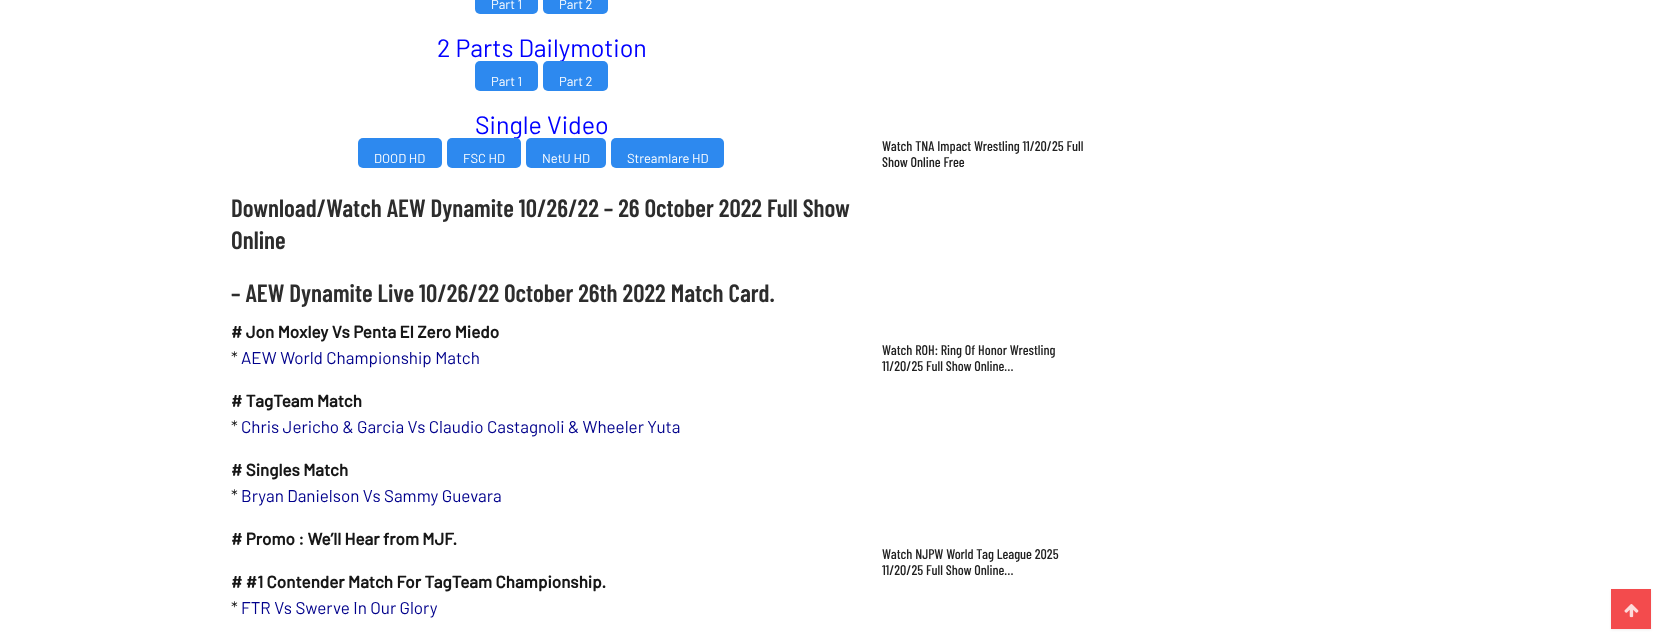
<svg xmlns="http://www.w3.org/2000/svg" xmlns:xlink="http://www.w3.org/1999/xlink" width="1661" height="637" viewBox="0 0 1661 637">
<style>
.cls-1{font:13px Barlow;fill:#ffffff}
.cls-2{font:25px Barlow;fill:#0000ff}
.cls-3{font:600 25px Barlow Condensed;fill:#2d2d2d}
.cls-4{font:bold 17px Barlow;fill:#171717}
.cls-5{font:17px Barlow;fill:#171717}
.cls-6{font:17px Barlow;fill:#00008b}
.cls-7{font:500 14px Barlow Condensed;fill:#212121}
</style>
<rect width="100%" height="100%" fill="#ffffff"/>
<rect fill="#2d89ef" x="475" y="-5" width="63" height="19" rx="5"/>
<rect fill="#2d89ef" x="543" y="-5" width="65" height="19" rx="5"/>
<rect fill="#2d89ef" x="358" y="138" width="84" height="30" rx="5"/>
<rect fill="#2d89ef" x="611" y="138" width="113" height="30" rx="5"/>
<rect fill="#333333" fill-opacity="0.09" filter="blur(1px)" x="1611" y="590" width="40" height="40"/>
<rect fill="#f34b4d" x="1611" y="589" width="40" height="40"/>
<image xlink:href="image0.png" x="1624" y="604" width="15" height="14"/>
<text class="cls-1" x="491" y="9">Part 1</text>
<text class="cls-1" x="559" y="9">Part 2</text>
<text class="cls-2" x="437" y="57">2 Parts Dailymotion</text>
<rect fill="#2d89ef" x="475" y="61" width="63" height="30" rx="5"/>
<text class="cls-1" x="491" y="86">Part 1</text>
<rect fill="#2d89ef" x="543" y="61" width="65" height="30" rx="5"/>
<text class="cls-1" x="559" y="86">Part 2</text>
<text class="cls-2" x="475" y="134">Single Video</text>
<text class="cls-1" x="374" y="163">DOOD HD</text>
<rect fill="#2d89ef" x="447" y="138" width="74" height="30" rx="5"/>
<text class="cls-1" x="463" y="163">FSC HD</text>
<rect fill="#2d89ef" x="526" y="138" width="80" height="30" rx="5"/>
<text class="cls-1" x="542" y="163">NetU HD</text>
<text class="cls-1" x="627" y="163">Streamlare HD</text>
<text class="cls-3"><tspan x="231" y="217">Download/Watch AEW Dynamite 10/26/22 – 26 October 2022 Full Show</tspan><tspan x="231" y="249">Online</tspan></text>
<text class="cls-3" x="231" y="302">– AEW Dynamite Live 10/26/22 October 26th 2022 Match Card.</text>
<text class="cls-4" x="231" y="338"># Jon Moxley Vs Penta El Zero Miedo</text>
<text class="cls-5" x="231" y="364">*</text>
<text class="cls-6" x="241" y="364">AEW World Championship Match</text>
<text class="cls-4" x="231" y="407"># TagTeam Match</text>
<text class="cls-5" x="231" y="433">*</text>
<text class="cls-6" x="241" y="433">Chris Jericho &amp; Garcia Vs Claudio Castagnoli &amp; Wheeler Yuta</text>
<text class="cls-4" x="231" y="476"># Singles Match</text>
<text class="cls-5" x="231" y="502">*</text>
<text class="cls-6" x="241" y="502">Bryan Danielson Vs Sammy Guevara</text>
<text class="cls-4" x="231" y="545"># Promo : We’ll Hear from MJF.</text>
<text class="cls-4" x="231" y="588"># #1 Contender Match For TagTeam Championship.</text>
<text class="cls-5" x="231" y="614">*</text>
<text class="cls-6" x="241" y="614">FTR Vs Swerve In Our Glory</text>
<text class="cls-7"><tspan x="882" y="151">Watch TNA Impact Wrestling 11/20/25 Full</tspan><tspan x="882" y="167">Show Online Free</tspan></text>
<text class="cls-7"><tspan x="882" y="355">Watch ROH: Ring Of Honor Wrestling</tspan><tspan x="882" y="371">11/20/25 Full Show Online…</tspan></text>
<text class="cls-7"><tspan x="882" y="559">Watch NJPW World Tag League 2025</tspan><tspan x="882" y="575">11/20/25 Full Show Online…</tspan></text>
</svg>
